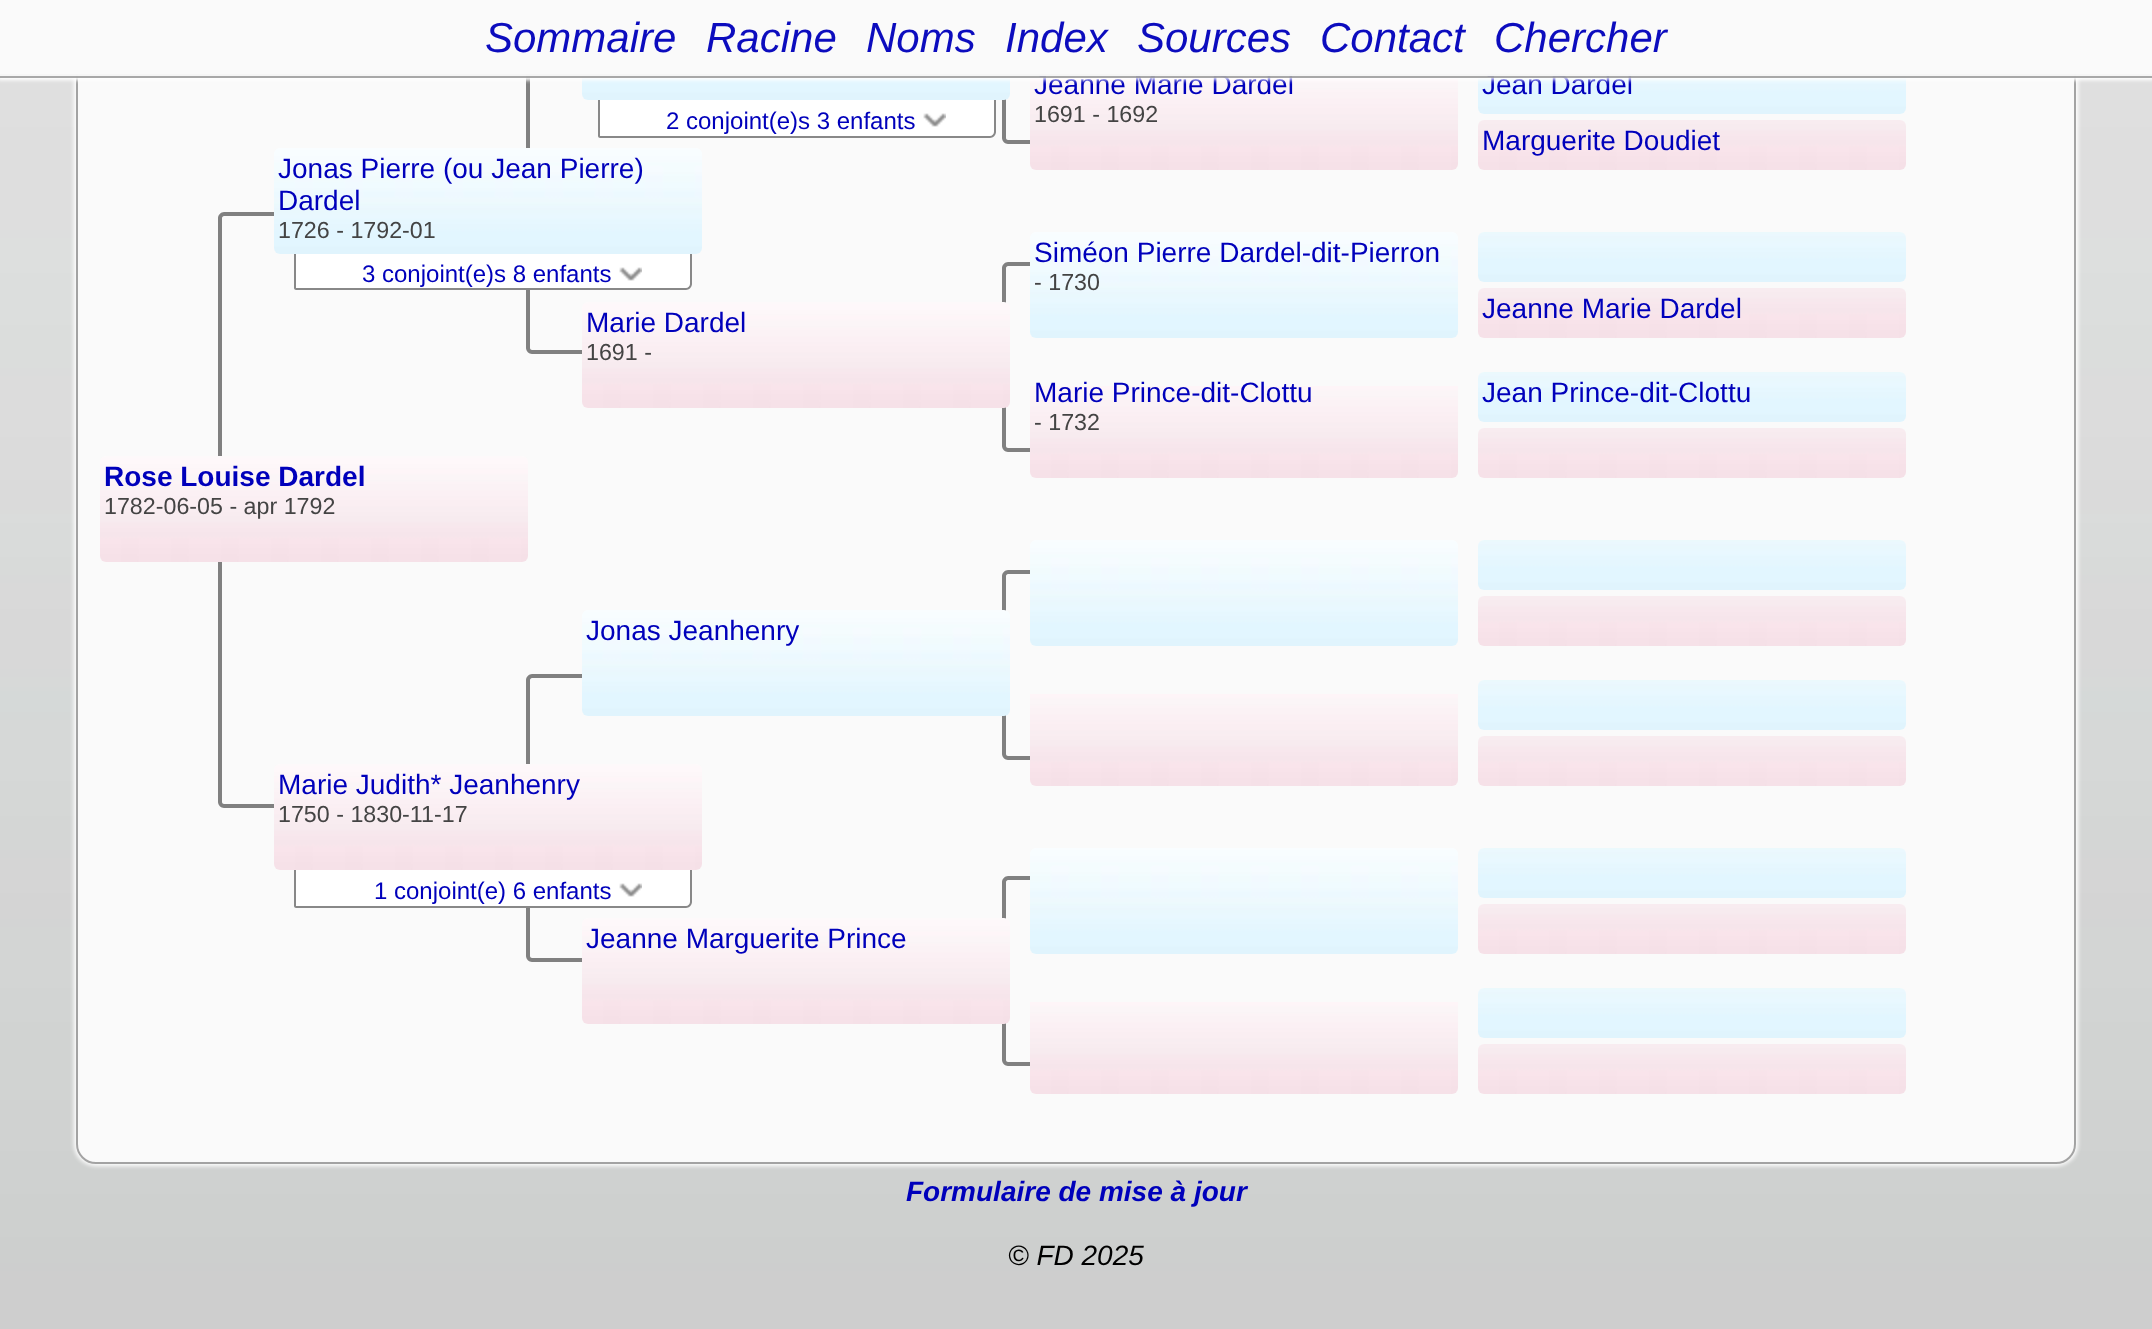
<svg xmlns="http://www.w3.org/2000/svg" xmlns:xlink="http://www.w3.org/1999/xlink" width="2152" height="1329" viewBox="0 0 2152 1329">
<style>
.cls-1{font:28px Liberation Sans;fill:#0000bb}
.cls-2{font:23.25px Liberation Sans;fill:#444444}
.cls-3{font:italic 42px Liberation Sans;fill:#0c0cbe}
.cls-4{font:24px Liberation Sans;fill:#0000bb}
.cls-5{font:bold 28px Liberation Sans;fill:#0000bb}
.cls-6{font:italic bold 28px Liberation Sans;fill:#0000bb}
.cls-7{font:italic 28px Liberation Sans;fill:#000000}
</style>
<defs>
<clipPath id="clip1"><rect x="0" y="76" width="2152" height="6"/></clipPath>
<clipPath id="clip2"><rect x="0" y="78" width="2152" height="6"/></clipPath>
</defs>
<rect width="100%" height="100%" fill="#ffffff"/>
<image xlink:href="image0.png" x="0" y="0" width="2152" height="1329"/>
<rect fill="#ffffff" filter="blur(2px)" x="74" y="-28" width="2004" height="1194" rx="22"/>
<rect fill="#fafafa" stroke="#a3a3a3" stroke-width="2" x="77" y="-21" width="1998" height="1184" rx="19"/>
<path fill="#808080" fill-rule="evenodd" d="M1008-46H1084C1087-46 1090-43 1090-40V138C1090 141 1087 144 1084 144H1008C1005 144 1002 141 1002 138V-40C1002-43 1005-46 1008-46ZM1008-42H1084C1087-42 1090-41 1090-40V138C1090 139 1087 140 1084 140H1008C1007 140 1006 139 1006 138V-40C1006-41 1007-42 1008-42Z"/>
<path fill="#808080" fill-rule="evenodd" d="M532 66H608C611 66 614 69 614 72V348C614 351 611 354 608 354H532C529 354 526 351 526 348V72C526 69 529 66 532 66ZM532 70H608C611 70 614 71 614 72V348C614 349 611 350 608 350H532C531 350 530 349 530 348V72C530 71 531 70 532 70Z"/>
<image xlink:href="image1.png" x="582" y="0" width="428" height="100"/>
<image xlink:href="image2.png" x="1030" y="0" width="428" height="30"/>
<image xlink:href="image3.png" x="1478" y="0" width="428" height="30"/>
<image xlink:href="image4.png" x="1030" y="78" width="428" height="92"/>
<image xlink:href="image5.png" x="1478" y="64" width="428" height="50"/>
<g clip-path="url(#clip1)">
<rect fill="#ffffff" fill-opacity="0.95" filter="blur(2px)" x="-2" y="-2" width="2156" height="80"/>
</g>
<path fill="#ffffff" d="M598 100H996V132C996 135.5 993.5 138 990 138H600C599 138 598 137 598 136Z"/>
<path fill="#888888" fill-rule="evenodd" d="M598 100H996V132C996 135 993 138 990 138H600C599 138 598 137 598 136ZM600 100H994V132C994 134 992 136 990 136H600Z"/>
<image xlink:href="image6.png" x="923" y="113" width="23" height="14"/>
<image xlink:href="image7.png" x="1478" y="120" width="428" height="50"/>
<path fill="#808080" fill-rule="evenodd" d="M224 212H314C317 212 320 215 320 218V802C320 805 317 808 314 808H224C221 808 218 805 218 802V218C218 215 221 212 224 212ZM224 216H314C317 216 320 217 320 218V802C320 803 317 804 314 804H224C223 804 222 803 222 802V218C222 217 223 216 224 216Z"/>
<path fill="#ffffff" d="M294 252H692V284C692 287.5 689.5 290 686 290H296C295 290 294 289 294 288Z"/>
<path fill="#888888" fill-rule="evenodd" d="M294 252H692V284C692 287 689 290 686 290H296C295 290 294 289 294 288ZM296 252H690V284C690 286 688 288 686 288H296Z"/>
<image xlink:href="image8.png" x="274" y="148" width="428" height="106"/>
<path fill="#808080" fill-rule="evenodd" d="M1008 262H1084C1087 262 1090 265 1090 268V446C1090 449 1087 452 1084 452H1008C1005 452 1002 449 1002 446V268C1002 265 1005 262 1008 262ZM1008 266H1084C1087 266 1090 267 1090 268V446C1090 447 1087 448 1084 448H1008C1007 448 1006 447 1006 446V268C1006 267 1007 266 1008 266Z"/>
<image xlink:href="image8.png" x="1030" y="232" width="428" height="106"/>
<image xlink:href="image5.png" x="1478" y="232" width="428" height="50"/>
<image xlink:href="image6.png" x="619" y="267" width="23" height="14"/>
<image xlink:href="image7.png" x="1478" y="288" width="428" height="50"/>
<image xlink:href="image9.png" x="582" y="302" width="428" height="106"/>
<image xlink:href="image4.png" x="1030" y="386" width="428" height="92"/>
<image xlink:href="image5.png" x="1478" y="372" width="428" height="50"/>
<image xlink:href="image7.png" x="1478" y="428" width="428" height="50"/>
<image xlink:href="image10.png" x="100" y="456" width="428" height="106"/>
<path fill="#808080" fill-rule="evenodd" d="M1008 570H1084C1087 570 1090 573 1090 576V754C1090 757 1087 760 1084 760H1008C1005 760 1002 757 1002 754V576C1002 573 1005 570 1008 570ZM1008 574H1084C1087 574 1090 575 1090 576V754C1090 755 1087 756 1084 756H1008C1007 756 1006 755 1006 754V576C1006 575 1007 574 1008 574Z"/>
<image xlink:href="image8.png" x="1030" y="540" width="428" height="106"/>
<image xlink:href="image5.png" x="1478" y="540" width="428" height="50"/>
<path fill="#808080" fill-rule="evenodd" d="M532 674H608C611 674 614 677 614 680V956C614 959 611 962 608 962H532C529 962 526 959 526 956V680C526 677 529 674 532 674ZM532 678H608C611 678 614 679 614 680V956C614 957 611 958 608 958H532C531 958 530 957 530 956V680C530 679 531 678 532 678Z"/>
<image xlink:href="image11.png" x="582" y="610" width="428" height="106"/>
<image xlink:href="image7.png" x="1478" y="596" width="428" height="50"/>
<image xlink:href="image4.png" x="1030" y="694" width="428" height="92"/>
<image xlink:href="image5.png" x="1478" y="680" width="428" height="50"/>
<image xlink:href="image7.png" x="1478" y="736" width="428" height="50"/>
<image xlink:href="image12.png" x="274" y="764" width="428" height="106"/>
<path fill="#808080" fill-rule="evenodd" d="M1008 876H1084C1087 876 1090 879 1090 882V1060C1090 1063 1087 1066 1084 1066H1008C1005 1066 1002 1063 1002 1060V882C1002 879 1005 876 1008 876ZM1008 880H1084C1087 880 1090 881 1090 882V1060C1090 1061 1087 1062 1084 1062H1008C1007 1062 1006 1061 1006 1060V882C1006 881 1007 880 1008 880Z"/>
<image xlink:href="image8.png" x="1030" y="848" width="428" height="106"/>
<image xlink:href="image5.png" x="1478" y="848" width="428" height="50"/>
<path fill="#ffffff" d="M294 870H692V902C692 905.5 689.5 908 686 908H296C295 908 294 907 294 906Z"/>
<path fill="#888888" fill-rule="evenodd" d="M294 870H692V902C692 905 689 908 686 908H296C295 908 294 907 294 906ZM296 870H690V902C690 904 688 906 686 906H296Z"/>
<image xlink:href="image6.png" x="619" y="883" width="23" height="14"/>
<image xlink:href="image9.png" x="582" y="918" width="428" height="106"/>
<image xlink:href="image7.png" x="1478" y="904" width="428" height="50"/>
<image xlink:href="image4.png" x="1030" y="1002" width="428" height="92"/>
<image xlink:href="image5.png" x="1478" y="988" width="428" height="50"/>
<image xlink:href="image7.png" x="1478" y="1044" width="428" height="50"/>
<text class="cls-1" x="1034" y="94">Jeanne Marie Dardel</text>
<text class="cls-2" x="1034" y="122">1691 - 1692</text>
<text class="cls-1" x="1482" y="94">Jean Dardel</text>
<rect fill="#a3a3a3" fill-opacity="0.95" x="0" y="74" width="2152" height="2"/>
<rect fill="#fafafa" fill-opacity="0.95" x="0" y="0" width="2152" height="74"/>
<g clip-path="url(#clip2)">
<rect fill="#ffffff" fill-opacity="0.95" filter="blur(2px)" x="-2" y="-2" width="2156" height="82"/>
</g>
<rect fill="#fafafa" fill-opacity="0.95" x="0" y="0" width="2152" height="76"/>
<text class="cls-3" x="1494" y="52">Chercher</text>
<text class="cls-3" x="1320" y="52">Contact</text>
<text class="cls-3" x="1137" y="52">Sources</text>
<text class="cls-3" x="1005" y="52">Index</text>
<text class="cls-3" x="866" y="52">Noms</text>
<text class="cls-3" x="706" y="52">Racine</text>
<text class="cls-3" x="485" y="52">Sommaire</text>
<rect fill="#a3a3a3" fill-opacity="0.95" x="0" y="76" width="2152" height="2"/>
<text class="cls-4" x="666" y="129">2 conjoint(e)s 3 enfants</text>
<text class="cls-1" x="1482" y="150">Marguerite Doudiet</text>
<text class="cls-1"><tspan x="278" y="178">Jonas Pierre (ou Jean Pierre)</tspan><tspan x="278" y="210">Dardel</tspan></text>
<text class="cls-2" x="278" y="238">1726 - 1792-01</text>
<text class="cls-1" x="1034" y="262">Siméon Pierre Dardel-dit-Pierron</text>
<text class="cls-2" x="1034" y="290">- 1730</text>
<text class="cls-4" x="362" y="282">3 conjoint(e)s 8 enfants</text>
<text class="cls-1" x="1482" y="318">Jeanne Marie Dardel</text>
<text class="cls-1" x="586" y="332">Marie Dardel</text>
<text class="cls-2" x="586" y="360">1691 -</text>
<text class="cls-1" x="1034" y="402">Marie Prince-dit-Clottu</text>
<text class="cls-2" x="1034" y="430">- 1732</text>
<text class="cls-1" x="1482" y="402">Jean Prince-dit-Clottu</text>
<text class="cls-5" x="104" y="486">Rose Louise Dardel</text>
<text class="cls-2" x="104" y="514">1782-06-05 - apr 1792</text>
<text class="cls-1" x="586" y="640">Jonas Jeanhenry</text>
<text class="cls-1" x="278" y="794">Marie Judith* Jeanhenry</text>
<text class="cls-2" x="278" y="822">1750 - 1830-11-17</text>
<text class="cls-4" x="374" y="899">1 conjoint(e) 6 enfants</text>
<text class="cls-1" x="586" y="948">Jeanne Marguerite Prince</text>
<text class="cls-6" x="906" y="1201">Formulaire de mise à jour</text>
<text class="cls-7" x="1008" y="1265">© FD 2025</text>
</svg>
